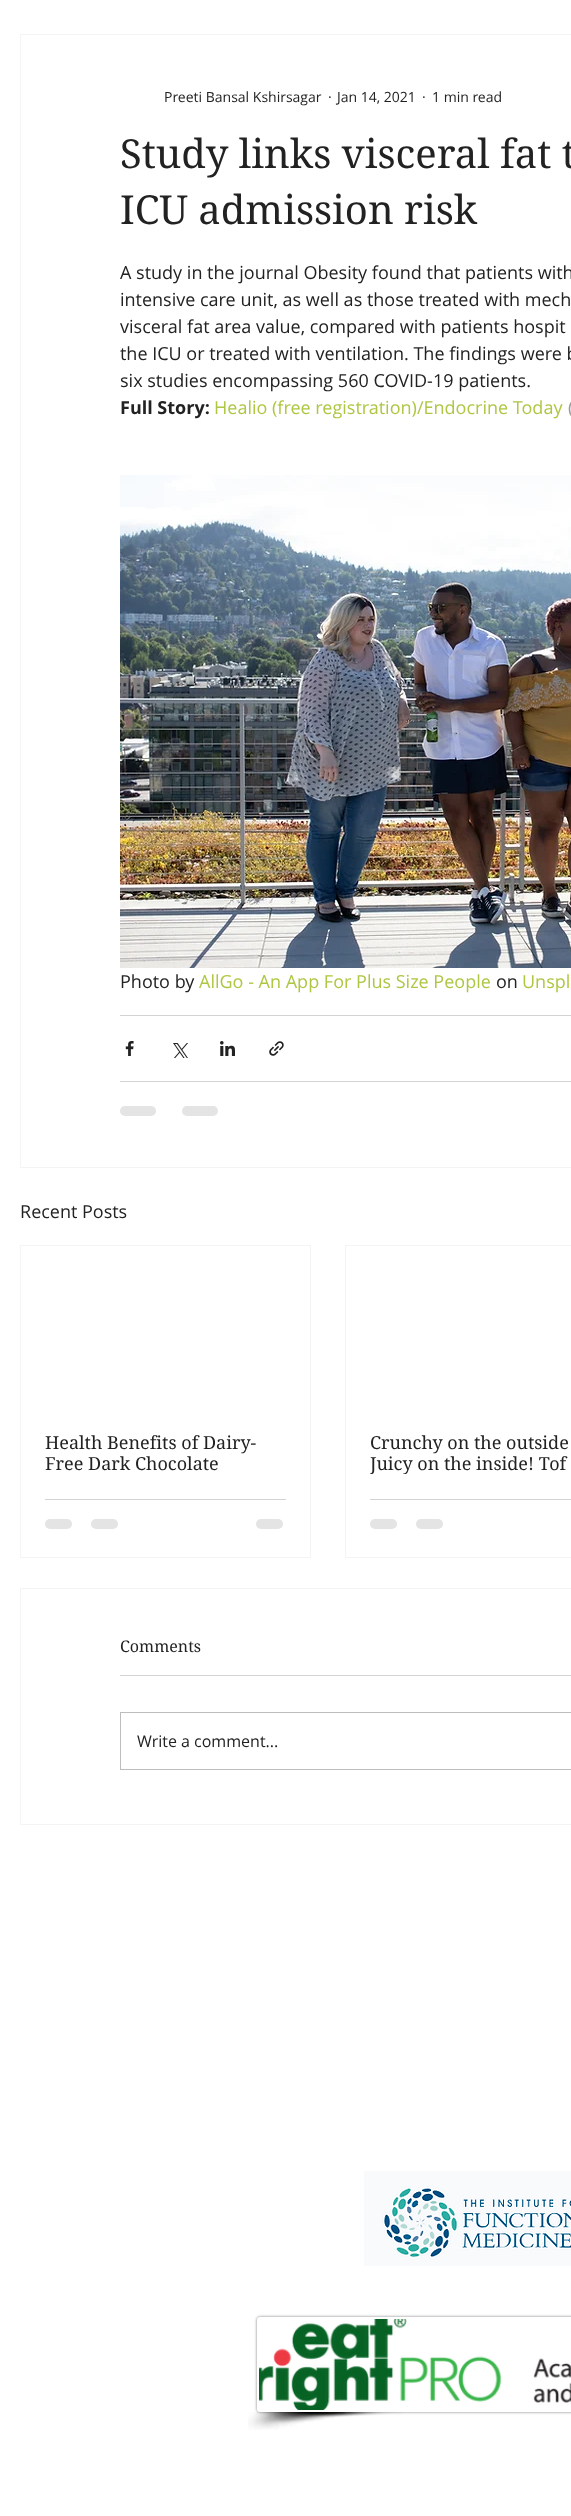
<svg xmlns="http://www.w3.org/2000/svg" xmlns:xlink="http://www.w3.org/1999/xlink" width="571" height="2516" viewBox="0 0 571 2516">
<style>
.cls-1{font:14px Open Sans;fill:#222222}
.cls-2{font:40px 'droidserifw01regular';fill:#222222}
.cls-3{font:18px Open Sans;fill:#222222}
.cls-4{font:bold 18px Open Sans;fill:#222222}
.cls-5{font:18px Open Sans;fill:#adc743}
.cls-6{font:18px Open Sans;fill:#999999}
.cls-7{font:18px 'droidserifw01regular';fill:#222222}
.cls-8{font:16px 'droidserifw01regular';fill:#222222}
.cls-9{font:16px Open Sans;fill:#222222}
</style>
<defs>
<clipPath id="clip1"><rect x="370" y="1432" width="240" height="42"/></clipPath>
</defs>
<rect width="100%" height="100%" fill="#ffffff"/>
<rect fill="none" stroke="#f4f4f4" x="20.5" y="34.5" width="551" height="1133"/>
<image xlink:href="image0.png" x="120" y="475" width="451" height="493"/>
<rect fill="#d3d3d3" x="120" y="1015" width="451" height="1"/>
<image xlink:href="image1.png" x="125" y="1041" width="9" height="15"/>
<image xlink:href="image2.png" x="173" y="1043" width="15" height="15"/>
<image xlink:href="image3.png" x="220" y="1041" width="15" height="15"/>
<image xlink:href="image4.png" x="269" y="1041" width="15" height="15"/>
<rect fill="#d3d3d3" x="120" y="1081" width="451" height="1"/>
<rect fill="#e4e4e4" x="120" y="1106" width="36" height="10" rx="5"/>
<rect fill="#e4e4e4" x="182" y="1106" width="36" height="10" rx="5"/>
<rect fill="none" stroke="#f4f4f4" x="20.5" y="1245.5" width="290" height="312"/>
<rect fill="#d3d3d3" x="45" y="1499" width="241" height="1"/>
<rect fill="#e4e4e4" x="45" y="1519" width="27" height="10" rx="5"/>
<rect fill="#e4e4e4" x="91" y="1519" width="27" height="10" rx="5"/>
<rect fill="#e4e4e4" x="256" y="1519" width="27" height="10" rx="5"/>
<rect fill="none" stroke="#f4f4f4" x="345.5" y="1245.5" width="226" height="312"/>
<rect fill="#d3d3d3" x="370" y="1499" width="201" height="1"/>
<rect fill="#e4e4e4" x="370" y="1519" width="27" height="10" rx="5"/>
<rect fill="#e4e4e4" x="416" y="1519" width="27" height="10" rx="5"/>
<rect fill="none" stroke="#f4f4f4" x="20.5" y="1588.5" width="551" height="236"/>
<rect fill="#d3d3d3" x="120" y="1675" width="451" height="1"/>
<rect fill="none" stroke="#bdbdbd" x="120.5" y="1712.5" width="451" height="57"/>
<image xlink:href="image5.png" x="364" y="2171" width="207" height="95"/>
<rect fill="#000000" fill-opacity="0.5" filter="blur(1.5px)" x="257" y="2317" width="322" height="95" rx="3"/>
<rect fill="#ffffff" stroke="#ffffff" stroke-width="2" x="258" y="2318" width="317" height="93" rx="2"/>
<image xlink:href="image6.png" x="259" y="2319" width="312" height="91"/>
<image xlink:href="image7.png" x="248" y="2412" width="154" height="18"/>
<text class="cls-1" x="164" y="102">Preeti Bansal Kshirsagar</text>
<text class="cls-1" x="328" y="102">·</text>
<text class="cls-1" x="337" y="102">Jan 14, 2021</text>
<text class="cls-1" x="422" y="102">·</text>
<text class="cls-1" x="432" y="102">1 min read</text>
<text class="cls-2"><tspan x="120" y="168">Study links visceral fat t</tspan><tspan x="120" y="224">ICU admission risk</tspan></text>
<text class="cls-3"><tspan x="120" y="279">A study in the journal Obesity found that patients with</tspan><tspan x="120" y="306">intensive care unit, as well as those treated with mech</tspan><tspan x="120" y="333">visceral fat area value, compared with patients hospit</tspan><tspan x="120" y="360">the ICU or treated with ventilation. The findings were b</tspan><tspan x="120" y="387">six studies encompassing 560 COVID-19 patients.</tspan></text>
<text class="cls-4" x="120" y="414">Full Story:</text>
<text class="cls-5" x="214" y="414">Healio (free registration)/Endocrine Today</text>
<text class="cls-6" x="568" y="414">(</text>
<text class="cls-3" x="120" y="988">Photo by</text>
<text class="cls-5" x="199" y="988">AllGo - An App For Plus Size People</text>
<text class="cls-3" x="496" y="988">on</text>
<text class="cls-5" x="522" y="988">Unspl</text>
<text class="cls-3" x="20" y="1218">Recent Posts</text>
<text class="cls-7"><tspan x="45" y="1449">Health Benefits of Dairy-</tspan><tspan x="45" y="1470">Free Dark Chocolate</tspan></text>
<text class="cls-7" x="370" y="1449">Crunchy on the outside</text>
<g clip-path="url(#clip1)">
<text class="cls-7" x="370" y="1470">Juicy on the inside! Tof</text>
</g>
<text class="cls-8" x="120" y="1652">Comments</text>
<text class="cls-9" x="137" y="1747">Write a comment...</text>
</svg>
